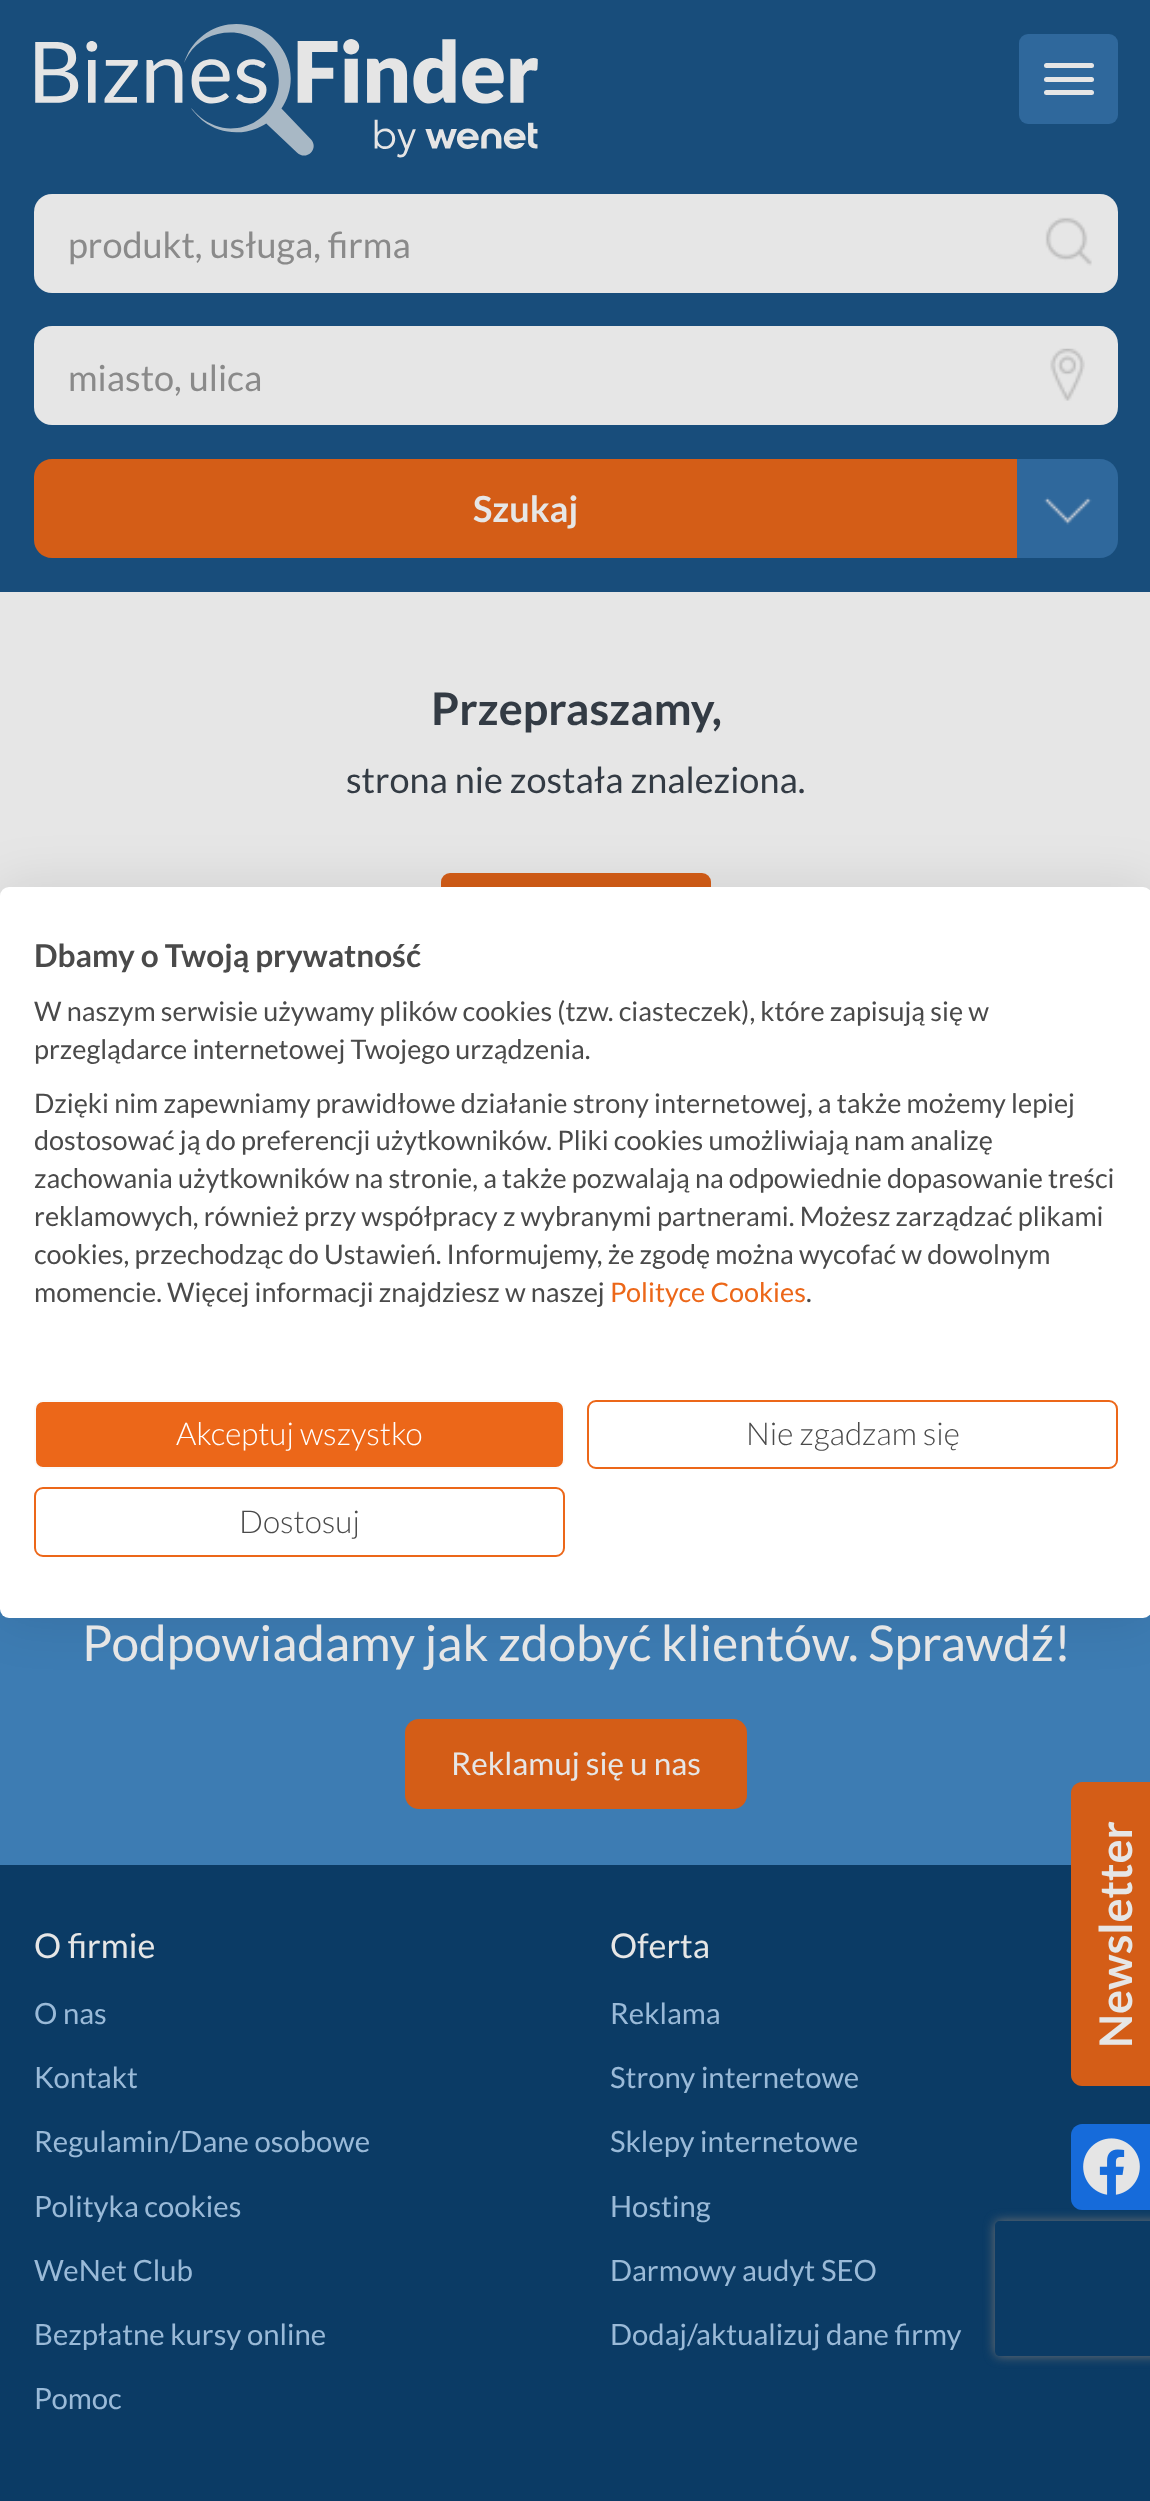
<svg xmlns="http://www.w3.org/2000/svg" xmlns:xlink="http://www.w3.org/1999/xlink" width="1150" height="2501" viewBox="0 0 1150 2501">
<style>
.cls-1{font:36px Lato;fill:#8a8a8a}
.cls-2{font:bold 36px Lato;fill:#e6e6e6}
.cls-3{font:bold 45px Lato;fill:#333b44}
.cls-4{font:36px Lato;fill:#333b44}
.cls-5{font:bold 31.5px Lato;fill:#4a4a4a}
.cls-6{font:27px Lato;fill:#4a4a4a}
.cls-7{font:27px Lato;fill:#ec6719}
.cls-8{font:300 31.5px Lato;fill:#ffffff}
.cls-9{font:300 31.5px Lato;fill:#4a4a4a}
.cls-10{font:49.5px Lato;fill:#e6e6e6}
.cls-11{font:31.5px Lato;fill:#e6e6e6}
.cls-12{font:34px Lato;fill:#e6e6e6}
.cls-13{font:29.25px Lato;fill:#9abad8}
.cls-14{font:bold 45px Lato;fill:#e6e6e6}
</style>
<defs>
<clipPath id="clip1"><path d="M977 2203H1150V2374H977ZM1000 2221H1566C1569 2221 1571 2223 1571 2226V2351C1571 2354 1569 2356 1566 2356H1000C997 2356 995 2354 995 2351V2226C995 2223 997 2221 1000 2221Z" clip-rule="evenodd"/></clipPath>
</defs>
<rect width="100%" height="100%" fill="#e6e6e6"/>
<rect fill="#184d7b" x="0" y="0" width="1150" height="592"/>
<image xlink:href="image0.png" x="35" y="24" width="503" height="134"/>
<rect fill="#2f689c" x="1019" y="34" width="99" height="90" rx="9"/>
<rect fill="#e6e6e6" x="1044" y="63" width="50" height="5" rx="2.5"/>
<rect fill="#e6e6e6" x="1044" y="77" width="50" height="5" rx="2.5"/>
<rect fill="#e6e6e6" x="1044" y="90" width="50" height="5" rx="2.5"/>
<rect fill="#e6e6e6" x="34" y="194" width="1084" height="99" rx="18"/>
<image xlink:href="image1.png" x="1045" y="217" width="47" height="49"/>
<rect fill="#e6e6e6" x="34" y="326" width="1084" height="99" rx="18"/>
<image xlink:href="image2.png" x="1050" y="348" width="35" height="53"/>
<path fill="#d45d17" d="M52 459H1017V558H52C42 558 34 550 34 540V477C34 467 42 459 52 459Z"/>
<path fill="#2f689c" d="M1017 459H1100C1110 459 1118 467 1118 477V540C1118 550 1110 558 1100 558H1017Z"/>
<image xlink:href="image3.png" x="1043" y="497" width="49" height="28"/>
<rect fill="#d45d17" x="441" y="873" width="270" height="90" rx="9"/>
<rect fill="#3d7cb3" x="0" y="1609" width="1150" height="256"/>
<rect fill="#000000" fill-opacity="0.1" filter="blur(27px)" x="0" y="887" width="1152" height="731" rx="9"/>
<rect fill="#ffffff" x="0" y="887" width="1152" height="731" rx="9"/>
<rect fill="#ec6719" stroke="#fafbfb" stroke-width="2" x="35" y="1401" width="529" height="67" rx="8"/>
<rect fill="none" stroke="#ec6719" stroke-width="2" x="588" y="1401" width="529" height="67" rx="8"/>
<rect fill="none" stroke="#ec6719" stroke-width="2" x="35" y="1488" width="529" height="68" rx="8"/>
<rect fill="#d45d17" x="405" y="1719" width="342" height="90" rx="14"/>
<rect fill="#0b3b65" x="0" y="1865" width="1150" height="636"/>
<path fill="#d45d17" d="M1082 1782H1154V2086H1082C1076 2086 1071 2081 1071 2075V1793C1071 1787 1076 1782 1082 1782Z"/>
<g clip-path="url(#clip1)">
<rect fill="#737373" filter="blur(5.5px)" x="995" y="2221" width="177" height="135" rx="5"/>
</g>
<path fill="#166bda" d="M1082 2124H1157V2210H1082C1076 2210 1071 2205 1071 2199V2135C1071 2129 1076 2124 1082 2124Z"/>
<image xlink:href="image4.png" x="1083" y="2138" width="57" height="57"/>
<text class="cls-1" x="68" y="258">produkt, usługa, firma</text>
<text class="cls-1" x="68" y="391">miasto, ulica</text>
<text class="cls-2" x="473" y="522">Szukaj</text>
<text class="cls-3" x="431" y="725">Przepraszamy,</text>
<text class="cls-4" x="346" y="793">strona nie została znaleziona.</text>
<text class="cls-5" x="34" y="967">Dbamy o Twoją prywatność</text>
<text class="cls-6"><tspan x="34" y="1021">W naszym serwisie używamy plików cookies (tzw. ciasteczek), które zapisują się w</tspan><tspan x="34" y="1059">przeglądarce internetowej Twojego urządzenia.</tspan></text>
<text class="cls-6"><tspan x="34" y="1113">Dzięki nim zapewniamy prawidłowe działanie strony internetowej, a także możemy lepiej</tspan><tspan x="34" y="1150">dostosować ją do preferencji użytkowników. Pliki cookies umożliwiają nam analizę</tspan><tspan x="34" y="1188">zachowania użytkowników na stronie, a także pozwalają na odpowiednie dopasowanie treści</tspan><tspan x="34" y="1226">reklamowych, również przy współpracy z wybranymi partnerami. Możesz zarządzać plikami</tspan><tspan x="34" y="1264">cookies, przechodząc do Ustawień. Informujemy, że zgodę można wycofać w dowolnym</tspan><tspan x="34" y="1302">momencie. Więcej informacji znajdziesz w naszej</tspan></text>
<text class="cls-7" x="610" y="1302">Polityce Cookies</text>
<text class="cls-6" x="806" y="1302">.</text>
<text class="cls-8" x="176" y="1445">Akceptuj wszystko</text>
<text class="cls-9" x="746" y="1445">Nie zgadzam się</text>
<text class="cls-9" x="239" y="1533">Dostosuj</text>
<text class="cls-10" x="82" y="1661">Podpowiadamy jak zdobyć klientów. Sprawdź!</text>
<text class="cls-11" x="451" y="1775">Reklamuj się u nas</text>
<text class="cls-12" x="34" y="1958">O firmie</text>
<text class="cls-13" x="34" y="2024">O nas</text>
<text class="cls-13" x="34" y="2088">Kontakt</text>
<text class="cls-13" x="34" y="2152">Regulamin/Dane osobowe</text>
<text class="cls-13" x="34" y="2217">Polityka cookies</text>
<text class="cls-13" x="34" y="2281">WeNet Club</text>
<text class="cls-13" x="34" y="2345">Bezpłatne kursy online</text>
<text class="cls-13" x="34" y="2409">Pomoc</text>
<text class="cls-12" x="610" y="1958">Oferta</text>
<text class="cls-13" x="610" y="2024">Reklama</text>
<text class="cls-13" x="610" y="2088">Strony internetowe</text>
<text class="cls-13" x="610" y="2152">Sklepy internetowe</text>
<text class="cls-13" x="610" y="2217">Hosting</text>
<text class="cls-13" x="610" y="2281">Darmowy audyt SEO</text>
<text class="cls-13" x="610" y="2345">Dodaj/aktualizuj dane firmy</text>
<text class="cls-14" x="1132" y="2048" transform="rotate(-90 1132 2048)">Newsletter</text>
</svg>
